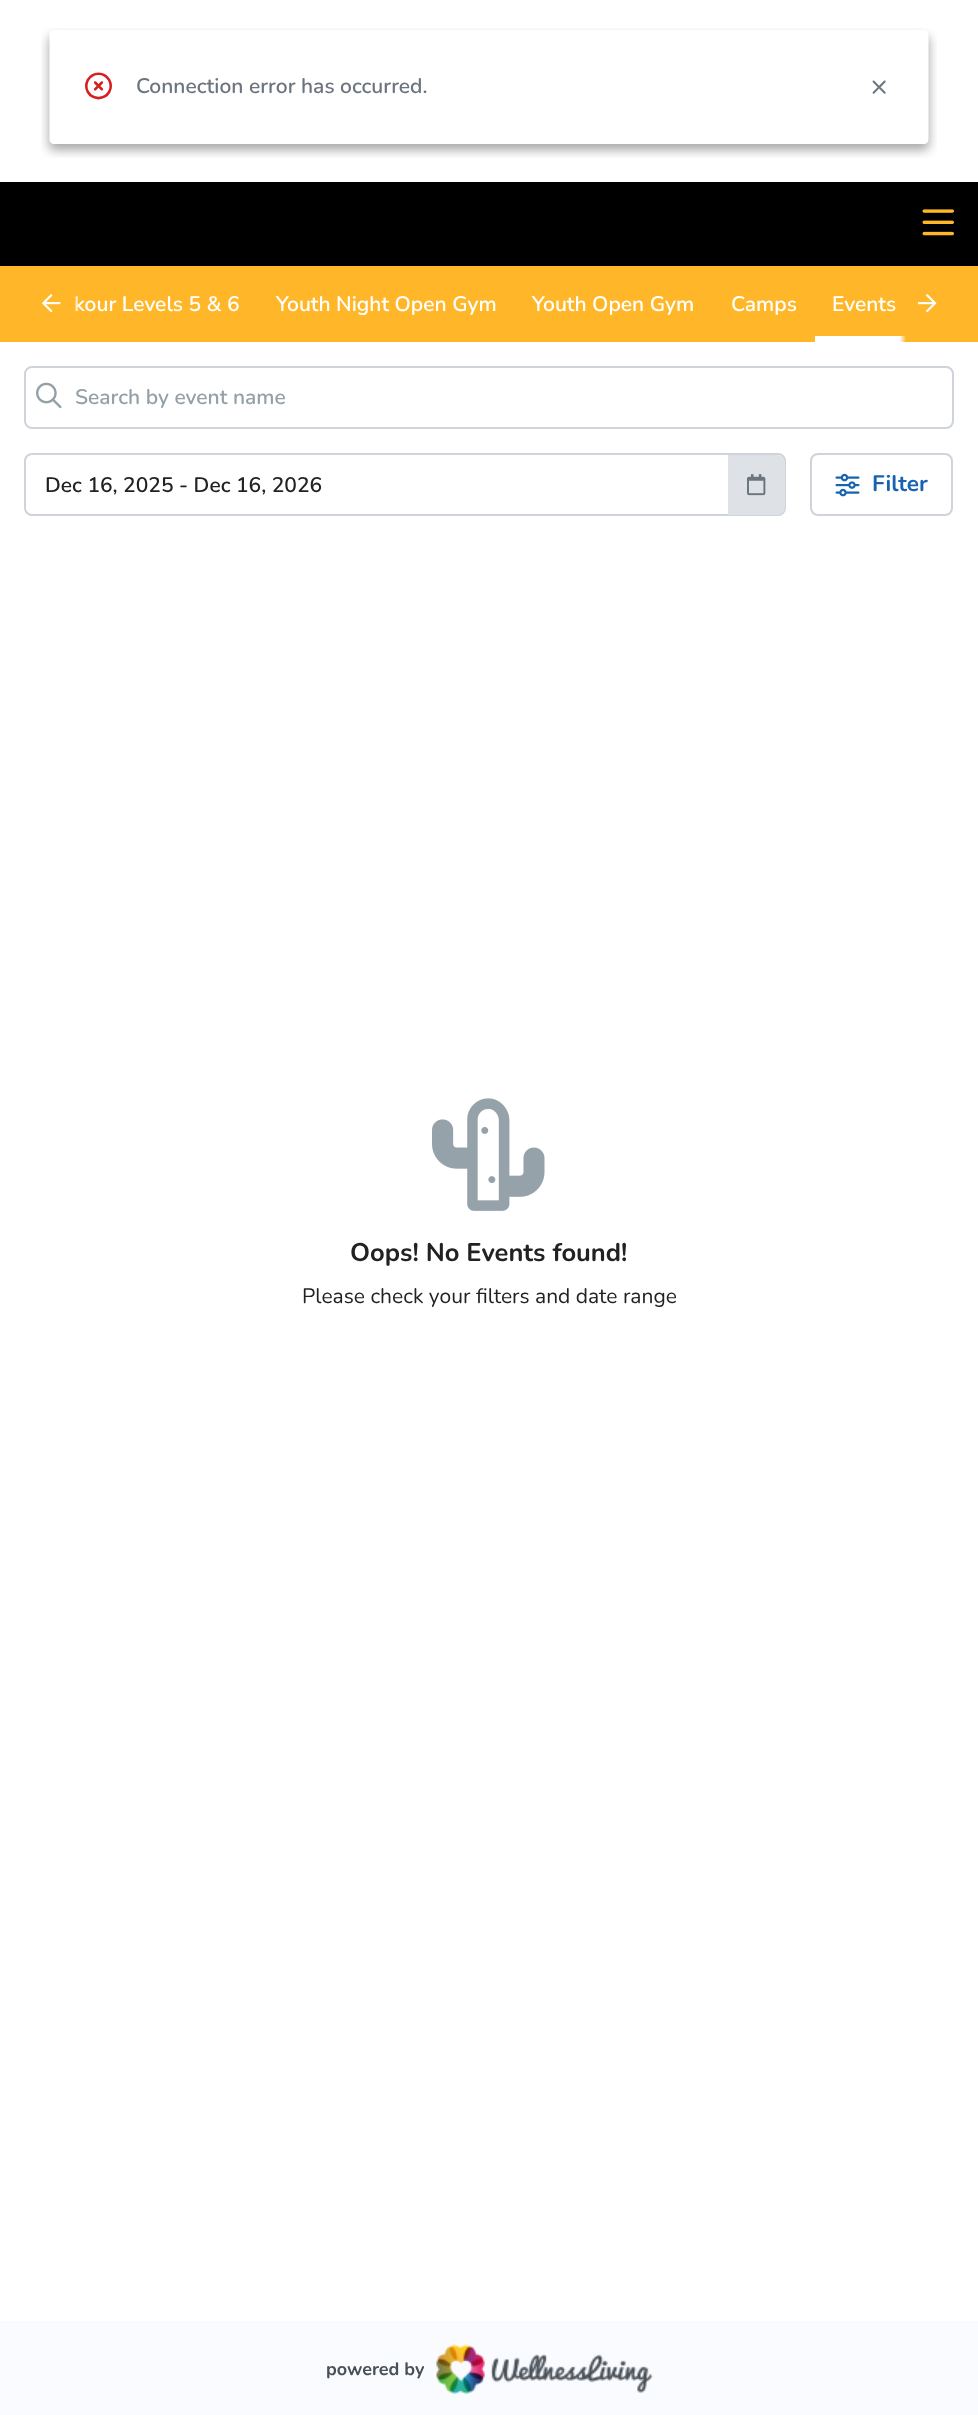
<svg xmlns="http://www.w3.org/2000/svg" xmlns:xlink="http://www.w3.org/1999/xlink" width="978" height="2415" viewBox="0 0 978 2415">
<style>
.cls-1{font:600 21px Nunito Sans;fill:#ffffff}
.cls-2{font:600 21px Nunito;fill:#94a0a7}
.cls-3{font:600 21px Nunito;fill:#222222}
.cls-4{font:bold 22.5px Nunito;fill:#1763b2}
.cls-5{font:bold 25.5px Nunito;fill:#222222}
.cls-6{font:21px Nunito;fill:#222222}
.cls-7{font:bold 18px Nunito;fill:#495057}
</style>
<defs>
<linearGradient id="g1" gradientUnits="userSpaceOnUse" x1="954" y1="304" x2="900" y2="304"><stop offset="0.89" stop-color="#ffb729"/><stop offset="1" stop-color="#ffb729" stop-opacity="0"/></linearGradient>
<linearGradient id="g2" gradientUnits="userSpaceOnUse" x1="24" y1="304" x2="78" y2="304"><stop offset="0.89" stop-color="#ffb729"/><stop offset="1" stop-color="#ffb729" stop-opacity="0"/></linearGradient>
</defs>
<rect width="100%" height="100%" fill="#ffffff"/>
<image xlink:href="image0.png" x="41" y="28" width="896" height="130"/>
<rect fill="#000000" x="0" y="182" width="978" height="84"/>
<image xlink:href="image1.png" x="922" y="209" width="32" height="27"/>
<rect fill="#ffb729" x="0" y="266" width="978" height="76"/>
<image xlink:href="image2.png" x="42" y="294" width="19" height="19"/>
<rect fill="#ffffff" x="815" y="336" width="91" height="6"/>
<rect fill="url(#g1)" x="900" y="336" width="6" height="6"/>
<image xlink:href="image3.png" x="918" y="294" width="19" height="19"/>
<rect fill="none" stroke="#ced4da" stroke-width="2" x="25" y="367" width="928" height="61" rx="7"/>
<image xlink:href="image4.png" x="36" y="382" width="26" height="27"/>
<rect fill="none" stroke="#ced4da" stroke-width="2" x="25" y="454" width="760" height="61" rx="7"/>
<path fill="#dee2e6" d="M728 455H777C781.5 455 785 458.5 785 463V507C785 511.5 781.5 515 777 515H728Z"/>
<image xlink:href="image5.png" x="747" y="474" width="19" height="22"/>
<rect fill="none" stroke="#ced4da" stroke-width="2" x="811" y="454" width="141" height="61" rx="7"/>
<image xlink:href="image6.png" x="835" y="473" width="25" height="24"/>
<image xlink:href="image7.png" x="432" y="1098" width="113" height="113"/>
<rect fill="#fafbfe" x="0" y="2321" width="978" height="94"/>
<image xlink:href="image8.png" x="436" y="2344" width="217" height="50"/>
<text class="cls-1" x="74" y="311">kour Levels 5 &amp; 6</text>
<rect fill="url(#g2)" x="75" y="296" width="3" height="15"/>
<text class="cls-1" x="276" y="311">Youth Night Open Gym</text>
<text class="cls-1" x="532" y="311">Youth Open Gym</text>
<text class="cls-1" x="731" y="311">Camps</text>
<text class="cls-1" x="832" y="311">Events</text>
<text class="cls-2" x="75" y="404">Search by event name</text>
<text class="cls-3" x="45" y="492">Dec 16, 2025 - Dec 16, 2026</text>
<text class="cls-4" x="872" y="491">Filter</text>
<text class="cls-5" x="350" y="1261">Oops! No Events found!</text>
<text class="cls-6" x="302" y="1303">Please check your filters and date range</text>
<text class="cls-7" x="326" y="2375">powered by</text>
</svg>
